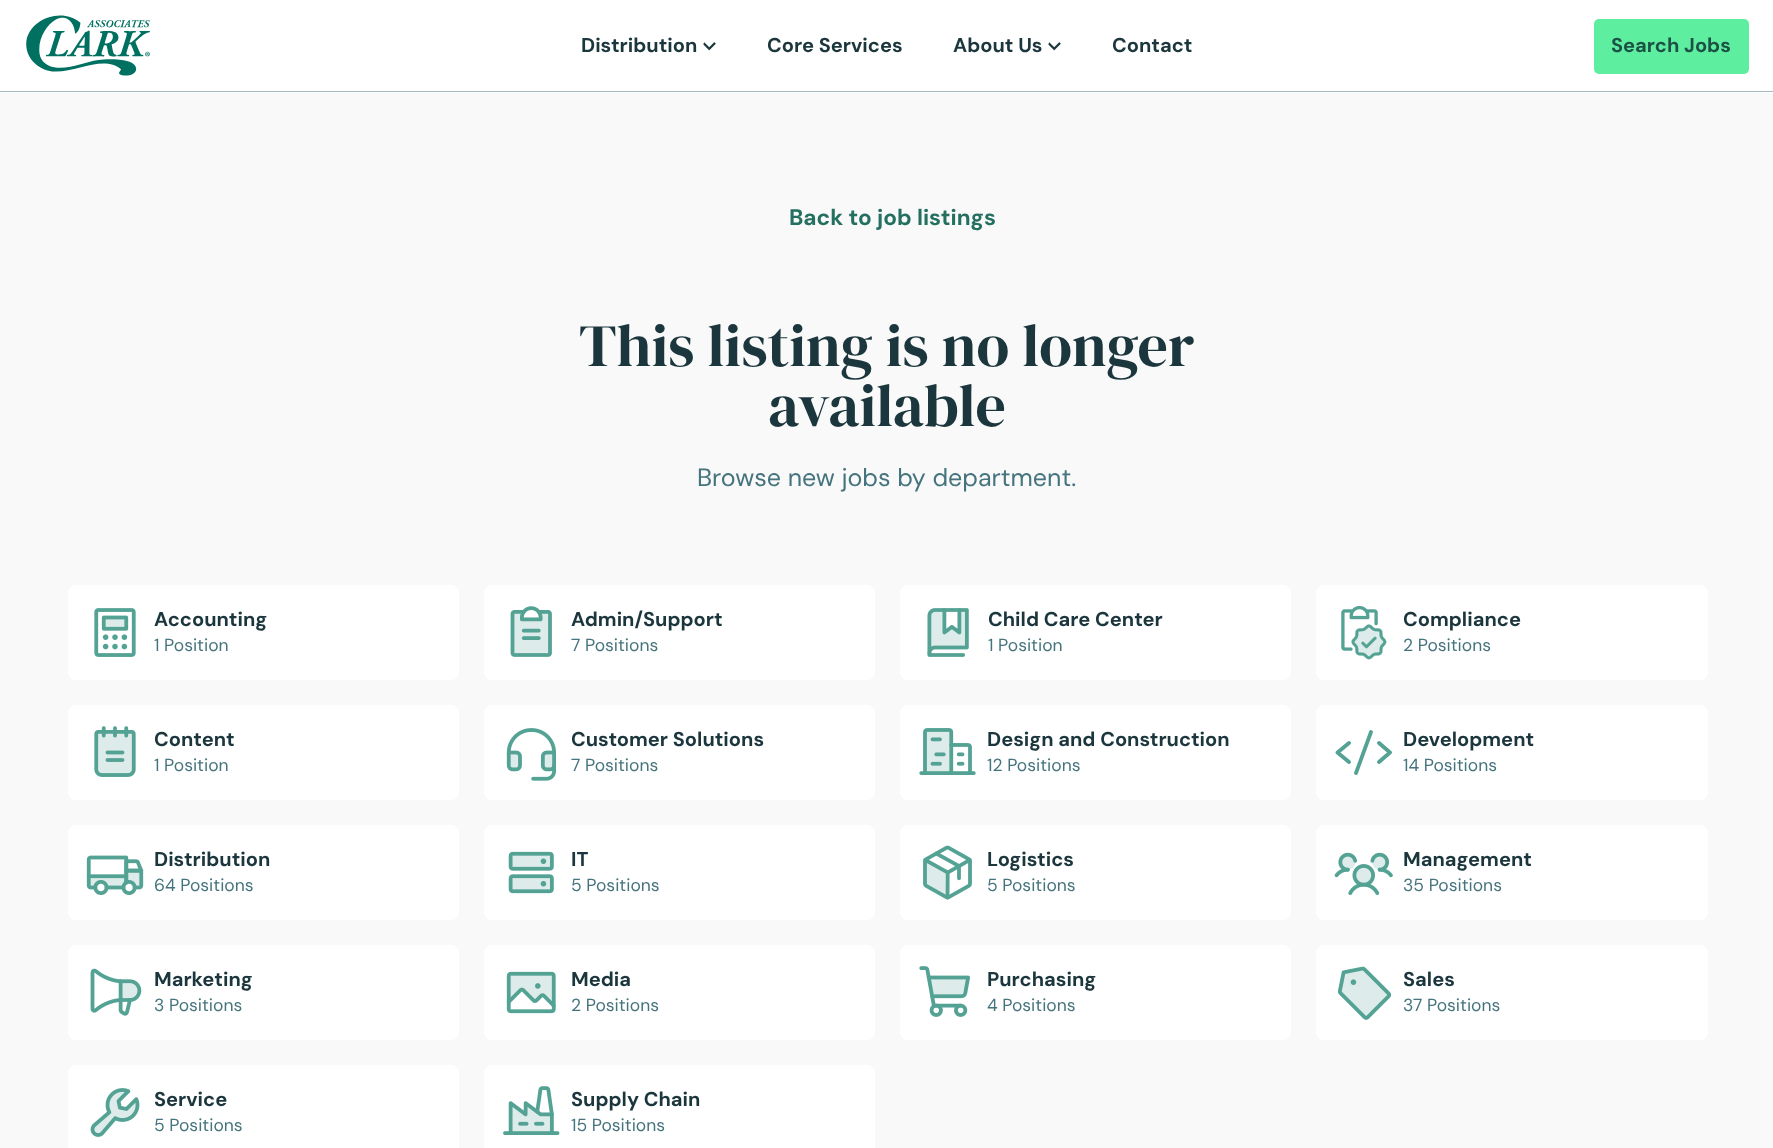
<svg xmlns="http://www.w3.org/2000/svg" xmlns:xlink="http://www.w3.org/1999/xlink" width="1773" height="1148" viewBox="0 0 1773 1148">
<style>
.cls-1{font:bold 20px DM Sans;fill:#1b363d}
.cls-2{font:bold 20px DM Sans;fill:#1c5245}
.cls-3{font:bold 22.5px DM Sans;fill:#247060}
.cls-4{font:60px DM Serif Display;fill:#1b363d}
.cls-5{font:25px DM Sans;fill:#46747e}
.cls-6{font:17.5px DM Sans;fill:#46747e}
</style>
<rect width="100%" height="100%" fill="#f9f9f9"/>
<rect fill="#ffffff" x="0" y="0" width="1773" height="93"/>
<rect fill="#a3babf" x="0" y="91" width="1773" height="1"/>
<image xlink:href="image0.png" x="26" y="15" width="124" height="61"/>
<image xlink:href="image1.png" x="703" y="42" width="13" height="9"/>
<image xlink:href="image1.png" x="1048" y="42" width="13" height="9"/>
<rect fill="#5eeea0" x="1594" y="19" width="155" height="55" rx="5"/>
<rect fill="#ffffff" x="68" y="585" width="391" height="95" rx="8"/>
<image xlink:href="image2.png" x="94" y="608" width="42" height="49"/>
<rect fill="#ffffff" x="484" y="585" width="391" height="95" rx="8"/>
<image xlink:href="image3.png" x="510" y="606" width="42" height="51"/>
<rect fill="#ffffff" x="900" y="585" width="391" height="95" rx="8"/>
<image xlink:href="image4.png" x="927" y="608" width="42" height="49"/>
<rect fill="#ffffff" x="1316" y="585" width="392" height="95" rx="8"/>
<image xlink:href="image5.png" x="1341" y="605" width="46" height="55"/>
<rect fill="#ffffff" x="68" y="705" width="391" height="95" rx="8"/>
<image xlink:href="image6.png" x="94" y="726" width="42" height="51"/>
<rect fill="#ffffff" x="484" y="705" width="391" height="95" rx="8"/>
<image xlink:href="image7.png" x="506" y="728" width="50" height="53"/>
<rect fill="#ffffff" x="900" y="705" width="391" height="95" rx="8"/>
<image xlink:href="image8.png" x="919" y="728" width="57" height="47"/>
<rect fill="#ffffff" x="1316" y="705" width="392" height="95" rx="8"/>
<path fill="none" stroke="#53a294" stroke-width="3.8" stroke-linecap="round" stroke-linejoin="round" d="M1349 743L1337.5 752.5L1349 762M1379 743L1390 752.5L1379 762M1371 732L1356 773"/>
<rect fill="#ffffff" x="68" y="825" width="391" height="95" rx="8"/>
<image xlink:href="image9.png" x="86" y="855" width="58" height="40"/>
<rect fill="#ffffff" x="484" y="825" width="391" height="95" rx="8"/>
<image xlink:href="image10.png" x="508" y="851" width="46" height="43"/>
<rect fill="#ffffff" x="900" y="825" width="391" height="95" rx="8"/>
<image xlink:href="image11.png" x="923" y="845" width="49" height="55"/>
<rect fill="#ffffff" x="1316" y="825" width="392" height="95" rx="8"/>
<image xlink:href="image12.png" x="1334" y="852" width="59" height="43"/>
<rect fill="#ffffff" x="68" y="945" width="391" height="95" rx="8"/>
<image xlink:href="image13.png" x="90" y="968" width="52" height="48"/>
<rect fill="#ffffff" x="484" y="945" width="391" height="95" rx="8"/>
<image xlink:href="image14.png" x="506" y="971" width="50" height="43"/>
<rect fill="#ffffff" x="900" y="945" width="391" height="95" rx="8"/>
<image xlink:href="image15.png" x="919" y="966" width="51" height="51"/>
<rect fill="#ffffff" x="1316" y="945" width="392" height="95" rx="8"/>
<image xlink:href="image16.png" x="1338" y="966" width="54" height="54"/>
<rect fill="#ffffff" x="68" y="1065" width="391" height="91" rx="8"/>
<image xlink:href="image17.png" x="90" y="1088" width="50" height="49"/>
<rect fill="#ffffff" x="484" y="1065" width="391" height="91" rx="8"/>
<image xlink:href="image18.png" x="503" y="1086" width="57" height="49"/>
<text class="cls-1" x="581" y="52">Distribution</text>
<text class="cls-1" x="767" y="52">Core Services</text>
<text class="cls-1" x="953" y="52">About Us</text>
<text class="cls-1" x="1112" y="52">Contact</text>
<text class="cls-2" x="1611" y="52">Search Jobs</text>
<text class="cls-3" x="789" y="225">Back to job listings</text>
<text class="cls-4" x="579" y="366">This listing is no longer</text>
<text class="cls-4" x="768" y="426">available</text>
<text class="cls-5" x="697" y="486">Browse new jobs by department.</text>
<text class="cls-1" x="154" y="626">Accounting</text>
<text class="cls-6" x="154" y="651">1 Position</text>
<text class="cls-1" x="571" y="626">Admin/Support</text>
<text class="cls-6" x="571" y="651">7 Positions</text>
<text class="cls-1" x="988" y="626">Child Care Center</text>
<text class="cls-6" x="988" y="651">1 Position</text>
<text class="cls-1" x="1403" y="626">Compliance</text>
<text class="cls-6" x="1403" y="651">2 Positions</text>
<text class="cls-1" x="154" y="746">Content</text>
<text class="cls-6" x="154" y="771">1 Position</text>
<text class="cls-1" x="571" y="746">Customer Solutions</text>
<text class="cls-6" x="571" y="771">7 Positions</text>
<text class="cls-1" x="987" y="746">Design and Construction</text>
<text class="cls-6" x="987" y="771">12 Positions</text>
<text class="cls-1" x="1403" y="746">Development</text>
<text class="cls-6" x="1403" y="771">14 Positions</text>
<text class="cls-1" x="154" y="866">Distribution</text>
<text class="cls-6" x="154" y="891">64 Positions</text>
<text class="cls-1" x="571" y="866">IT</text>
<text class="cls-6" x="571" y="891">5 Positions</text>
<text class="cls-1" x="987" y="866">Logistics</text>
<text class="cls-6" x="987" y="891">5 Positions</text>
<text class="cls-1" x="1403" y="866">Management</text>
<text class="cls-6" x="1403" y="891">35 Positions</text>
<text class="cls-1" x="154" y="986">Marketing</text>
<text class="cls-6" x="154" y="1011">3 Positions</text>
<text class="cls-1" x="571" y="986">Media</text>
<text class="cls-6" x="571" y="1011">2 Positions</text>
<text class="cls-1" x="987" y="986">Purchasing</text>
<text class="cls-6" x="987" y="1011">4 Positions</text>
<text class="cls-1" x="1403" y="986">Sales</text>
<text class="cls-6" x="1403" y="1011">37 Positions</text>
<text class="cls-1" x="154" y="1106">Service</text>
<text class="cls-6" x="154" y="1131">5 Positions</text>
<text class="cls-1" x="571" y="1106">Supply Chain</text>
<text class="cls-6" x="571" y="1131">15 Positions</text>
</svg>
